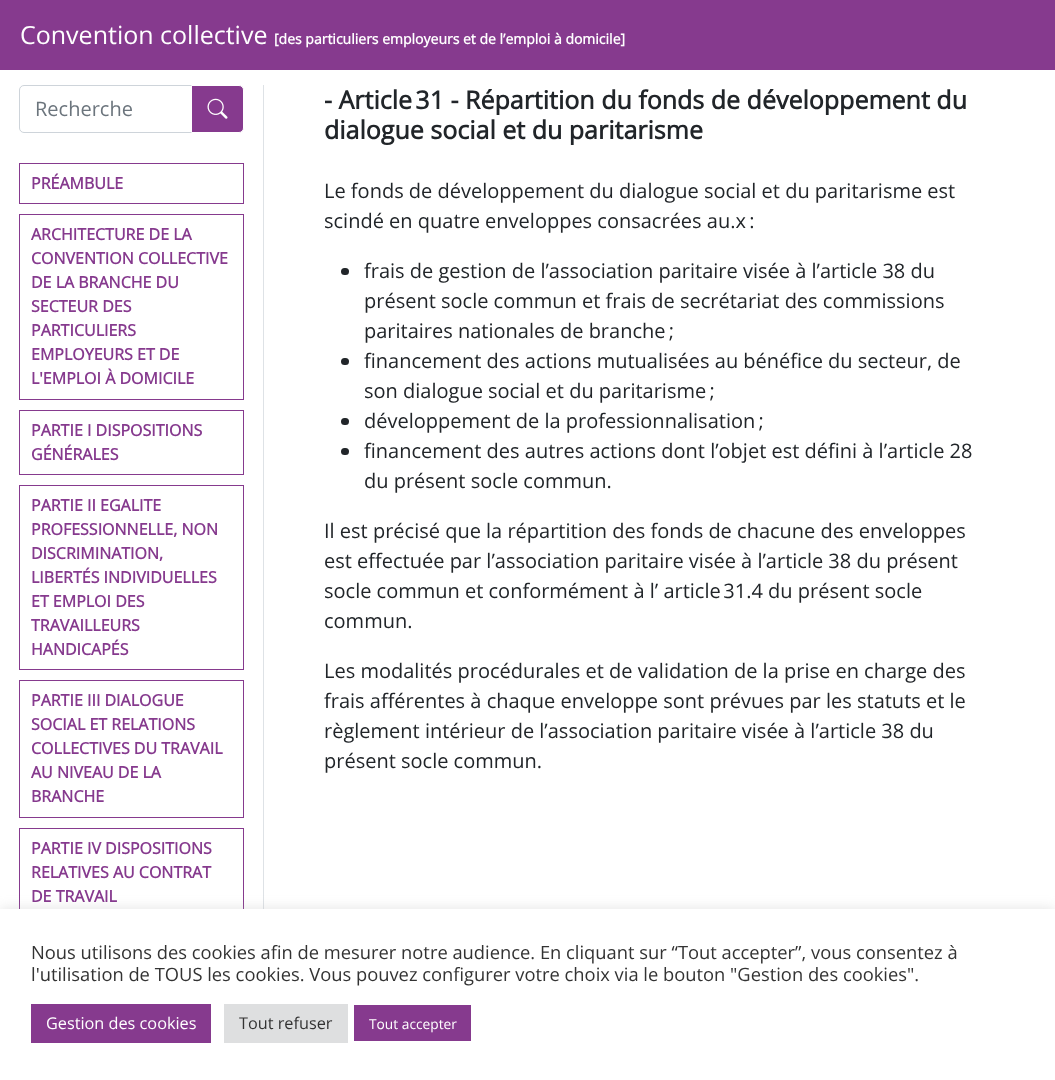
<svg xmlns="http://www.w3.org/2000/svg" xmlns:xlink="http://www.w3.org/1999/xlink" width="1055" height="1080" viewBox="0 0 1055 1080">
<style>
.cls-1{font:25px Open Sans;fill:#ffffff}
.cls-2{font:bold 14px Open Sans;fill:#ffffff}
.cls-3{font:20px Open Sans;fill:#6c757d}
.cls-4{font:bold 16px Open Sans;fill:#863a8e}
.cls-5{font:bold 25px Open Sans;fill:#212529}
.cls-6{font:20px Open Sans;fill:#212529}
.cls-7{font:18.33px Open Sans;fill:#333333}
.cls-8{font:16.25px Open Sans;fill:#ffffff}
.cls-9{font:16.25px Open Sans;fill:#333333}
.cls-10{font:13.75px Open Sans;fill:#ffffff}
</style>
<rect width="100%" height="100%" fill="#ffffff"/>
<rect fill="#863a8e" x="0" y="0" width="1055" height="70"/>
<rect fill="#dee2e6" x="263" y="85" width="1" height="824"/>
<path fill="none" stroke="#ced4da" d="M24 85.5H192.5V132.5H24C21.5 132.5 19.5 130.5 19.5 128V90C19.5 87.5 21.5 85.5 24 85.5Z"/>
<path fill="#863a8e" stroke="#ffffff" d="M191.5 85.5H239C241.5 85.5 243.5 87.5 243.5 90V128C243.5 130.5 241.5 132.5 239 132.5H191.5Z"/>
<image xlink:href="image0.png" x="207" y="98" width="21" height="21"/>
<rect fill="none" stroke="#863a8e" x="19.5" y="163.5" width="224" height="40"/>
<rect fill="none" stroke="#863a8e" x="19.5" y="214.5" width="224" height="185"/>
<rect fill="none" stroke="#863a8e" x="19.5" y="410.5" width="224" height="64"/>
<rect fill="none" stroke="#863a8e" x="19.5" y="485.5" width="224" height="184"/>
<rect fill="none" stroke="#863a8e" x="19.5" y="680.5" width="224" height="137"/>
<rect fill="none" stroke="#863a8e" x="19.5" y="828.5" width="224" height="89"/>
<rect fill="#212529" x="341" y="268" width="8" height="7" rx="3.5"/>
<rect fill="#212529" x="341" y="358" width="8" height="7" rx="3.5"/>
<rect fill="#212529" x="341" y="418" width="8" height="7" rx="3.5"/>
<rect fill="#212529" x="341" y="448" width="8" height="7" rx="3.5"/>
<rect fill="#acabab" fill-opacity="0.3" filter="blur(6px)" x="0" y="908" width="1055" height="171"/>
<rect fill="#ffffff" x="0" y="909" width="1055" height="171"/>
<rect fill="#863a8e" x="31" y="1004" width="180" height="39"/>
<rect fill="#dedfe0" x="224" y="1004" width="124" height="39"/>
<rect fill="#863a8e" x="354" y="1005" width="117" height="36"/>
<text class="cls-1" x="20" y="44">Convention collective</text>
<text class="cls-2" x="274" y="44">[des particuliers employeurs et de l’emploi à domicile]</text>
<text class="cls-3" x="35" y="116">Recherche</text>
<text class="cls-4" x="31" y="189">PRÉAMBULE</text>
<text class="cls-4"><tspan x="31" y="240">ARCHITECTURE DE LA</tspan><tspan x="31" y="264">CONVENTION COLLECTIVE</tspan><tspan x="31" y="288">DE LA BRANCHE DU</tspan><tspan x="31" y="312">SECTEUR DES</tspan><tspan x="31" y="336">PARTICULIERS</tspan><tspan x="31" y="360">EMPLOYEURS ET DE</tspan><tspan x="31" y="384">L'EMPLOI À DOMICILE</tspan></text>
<text class="cls-4"><tspan x="31" y="436">PARTIE I DISPOSITIONS</tspan><tspan x="31" y="460">GÉNÉRALES</tspan></text>
<text class="cls-4"><tspan x="31" y="511">PARTIE II EGALITE</tspan><tspan x="31" y="535">PROFESSIONNELLE, NON</tspan><tspan x="31" y="559">DISCRIMINATION,</tspan><tspan x="31" y="583">LIBERTÉS INDIVIDUELLES</tspan><tspan x="31" y="607">ET EMPLOI DES</tspan><tspan x="31" y="631">TRAVAILLEURS</tspan><tspan x="31" y="655">HANDICAPÉS</tspan></text>
<text class="cls-4"><tspan x="31" y="706">PARTIE III DIALOGUE</tspan><tspan x="31" y="730">SOCIAL ET RELATIONS</tspan><tspan x="31" y="754">COLLECTIVES DU TRAVAIL</tspan><tspan x="31" y="778">AU NIVEAU DE LA</tspan><tspan x="31" y="802">BRANCHE</tspan></text>
<text class="cls-4"><tspan x="31" y="854">PARTIE IV DISPOSITIONS</tspan><tspan x="31" y="878">RELATIVES AU CONTRAT</tspan><tspan x="31" y="902">DE TRAVAIL</tspan></text>
<text class="cls-5"><tspan x="324" y="109">- Article 31 - Répartition du fonds de développement du</tspan><tspan x="324" y="139">dialogue social et du paritarisme</tspan></text>
<text class="cls-6"><tspan x="324" y="198">Le fonds de développement du dialogue social et du paritarisme est</tspan><tspan x="324" y="228">scindé en quatre enveloppes consacrées au.x :</tspan></text>
<text class="cls-6"><tspan x="364" y="278">frais de gestion de l’association paritaire visée à l’article 38 du</tspan><tspan x="364" y="308">présent socle commun et frais de secrétariat des commissions</tspan><tspan x="364" y="338">paritaires nationales de branche ;</tspan><tspan x="364" y="368">financement des actions mutualisées au bénéfice du secteur, de</tspan><tspan x="364" y="398">son dialogue social et du paritarisme ;</tspan><tspan x="364" y="428">développement de la professionnalisation ;</tspan><tspan x="364" y="458">financement des autres actions dont l’objet est défini à l’article 28</tspan><tspan x="364" y="488">du présent socle commun.</tspan></text>
<text class="cls-6"><tspan x="324" y="538">Il est précisé que la répartition des fonds de chacune des enveloppes</tspan><tspan x="324" y="568">est effectuée par l’association paritaire visée à l’article 38 du présent</tspan><tspan x="324" y="598">socle commun et conformément à l’ article 31.4 du présent socle</tspan><tspan x="324" y="628">commun.</tspan></text>
<text class="cls-6"><tspan x="324" y="678">Les modalités procédurales et de validation de la prise en charge des</tspan><tspan x="324" y="708">frais afférentes à chaque enveloppe sont prévues par les statuts et le</tspan><tspan x="324" y="738">règlement intérieur de l’association paritaire visée à l’article 38 du</tspan><tspan x="324" y="768">présent socle commun.</tspan></text>
<text class="cls-7"><tspan x="31" y="959">Nous utilisons des cookies afin de mesurer notre audience. En cliquant sur “Tout accepter”, vous consentez à</tspan><tspan x="31" y="981">l'utilisation de TOUS les cookies. Vous pouvez configurer votre choix via le bouton "Gestion des cookies".</tspan></text>
<text class="cls-8" x="46" y="1029">Gestion des cookies</text>
<text class="cls-9" x="239" y="1029">Tout refuser</text>
<text class="cls-10" x="369" y="1029">Tout accepter</text>
</svg>
